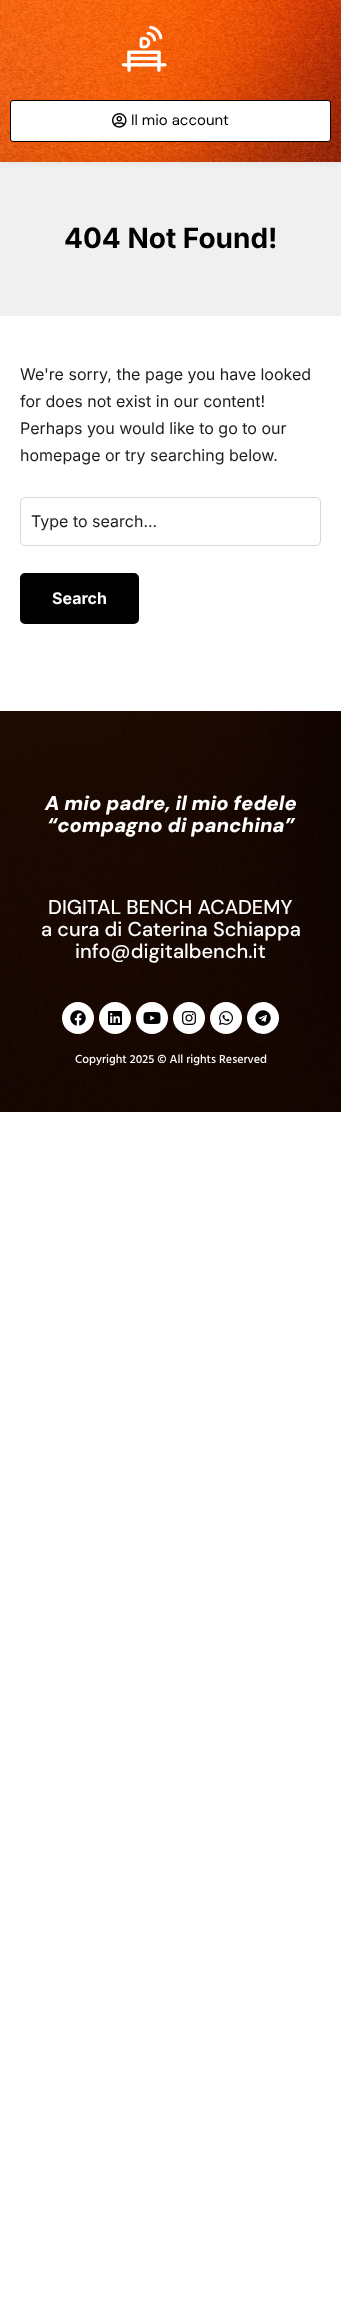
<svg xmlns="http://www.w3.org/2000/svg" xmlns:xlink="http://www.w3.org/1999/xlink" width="341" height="2309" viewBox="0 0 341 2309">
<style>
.cls-1{font:15px DM Sans;fill:#000000}
.cls-2{font:bold 28px Inter;fill:#000000}
.cls-3{font:16px Inter;fill:#1d1d1f}
.cls-4{font:bold 16px Inter;fill:#ffffff}
.cls-5{font:italic 900 20px DM Sans;fill:#ffffff}
.cls-6{font:500 20px DM Sans;fill:#ffffff}
.cls-7{font:500 12px Hind;fill:#ffffff}
</style>
<rect width="100%" height="100%" fill="#ffffff"/>
<rect fill="#f0f0f0" x="0" y="162" width="341" height="154"/>
<rect fill="#000000" fill-opacity="0.1" filter="blur(5px)" x="2" y="2" width="337" height="158"/>
<image xlink:href="image0.png" x="0" y="0" width="341" height="162"/>
<image xlink:href="image1.png" x="121" y="25" width="46" height="47"/>
<rect fill="#ffffff" stroke="#000000" x="10.5" y="100.5" width="320" height="41" rx="2.5"/>
<image xlink:href="image2.png" x="112" y="113" width="15" height="15"/>
<rect fill="none" stroke="#d8d8d8" x="20.5" y="497.5" width="300" height="48" rx="4.5"/>
<rect fill="#000000" stroke="#000000" stroke-width="2" x="21" y="574" width="117" height="49" rx="4"/>
<image xlink:href="image3.png" x="0" y="711" width="341" height="401"/>
<circle fill="#ffffff" cx="78" cy="1018" r="16"/>
<image xlink:href="image4.png" x="70" y="1010" width="16" height="16"/>
<circle fill="#ffffff" cx="115" cy="1018" r="16"/>
<image xlink:href="image5.png" x="108" y="1011" width="14" height="14"/>
<circle fill="#ffffff" cx="152" cy="1018" r="16"/>
<image xlink:href="image6.png" x="143" y="1012" width="18" height="12"/>
<circle fill="#ffffff" cx="189" cy="1018" r="16"/>
<image xlink:href="image7.png" x="182" y="1011" width="14" height="14"/>
<circle fill="#ffffff" cx="226" cy="1018" r="16"/>
<image xlink:href="image8.png" x="219" y="1011" width="14" height="14"/>
<circle fill="#ffffff" cx="263" cy="1018" r="16"/>
<image xlink:href="image9.png" x="255" y="1010" width="16" height="16"/>
<text class="cls-1" x="131" y="125">Il mio account</text>
<text class="cls-2" x="64" y="248">404 Not Found!</text>
<text class="cls-3"><tspan x="20" y="380">We're sorry, the page you have looked</tspan><tspan x="20" y="407">for does not exist in our content!</tspan><tspan x="20" y="434">Perhaps you would like to go to our</tspan><tspan x="20" y="461">homepage or try searching below.</tspan></text>
<text class="cls-3" x="31" y="527">Type to search...</text>
<text class="cls-4" x="52" y="604">Search</text>
<text class="cls-5" x="45" y="810">A mio padre, il mio fedele</text>
<text class="cls-5" x="47" y="832">“compagno di panchina”</text>
<text class="cls-6" x="48" y="914">DIGITAL BENCH ACADEMY</text>
<text class="cls-6" x="41" y="936">a cura di Caterina Schiappa</text>
<text class="cls-6" x="75" y="958">info@digitalbench.it</text>
<text class="cls-7" x="75" y="1063">Copyright 2025 © All rights Reserved</text>
</svg>
